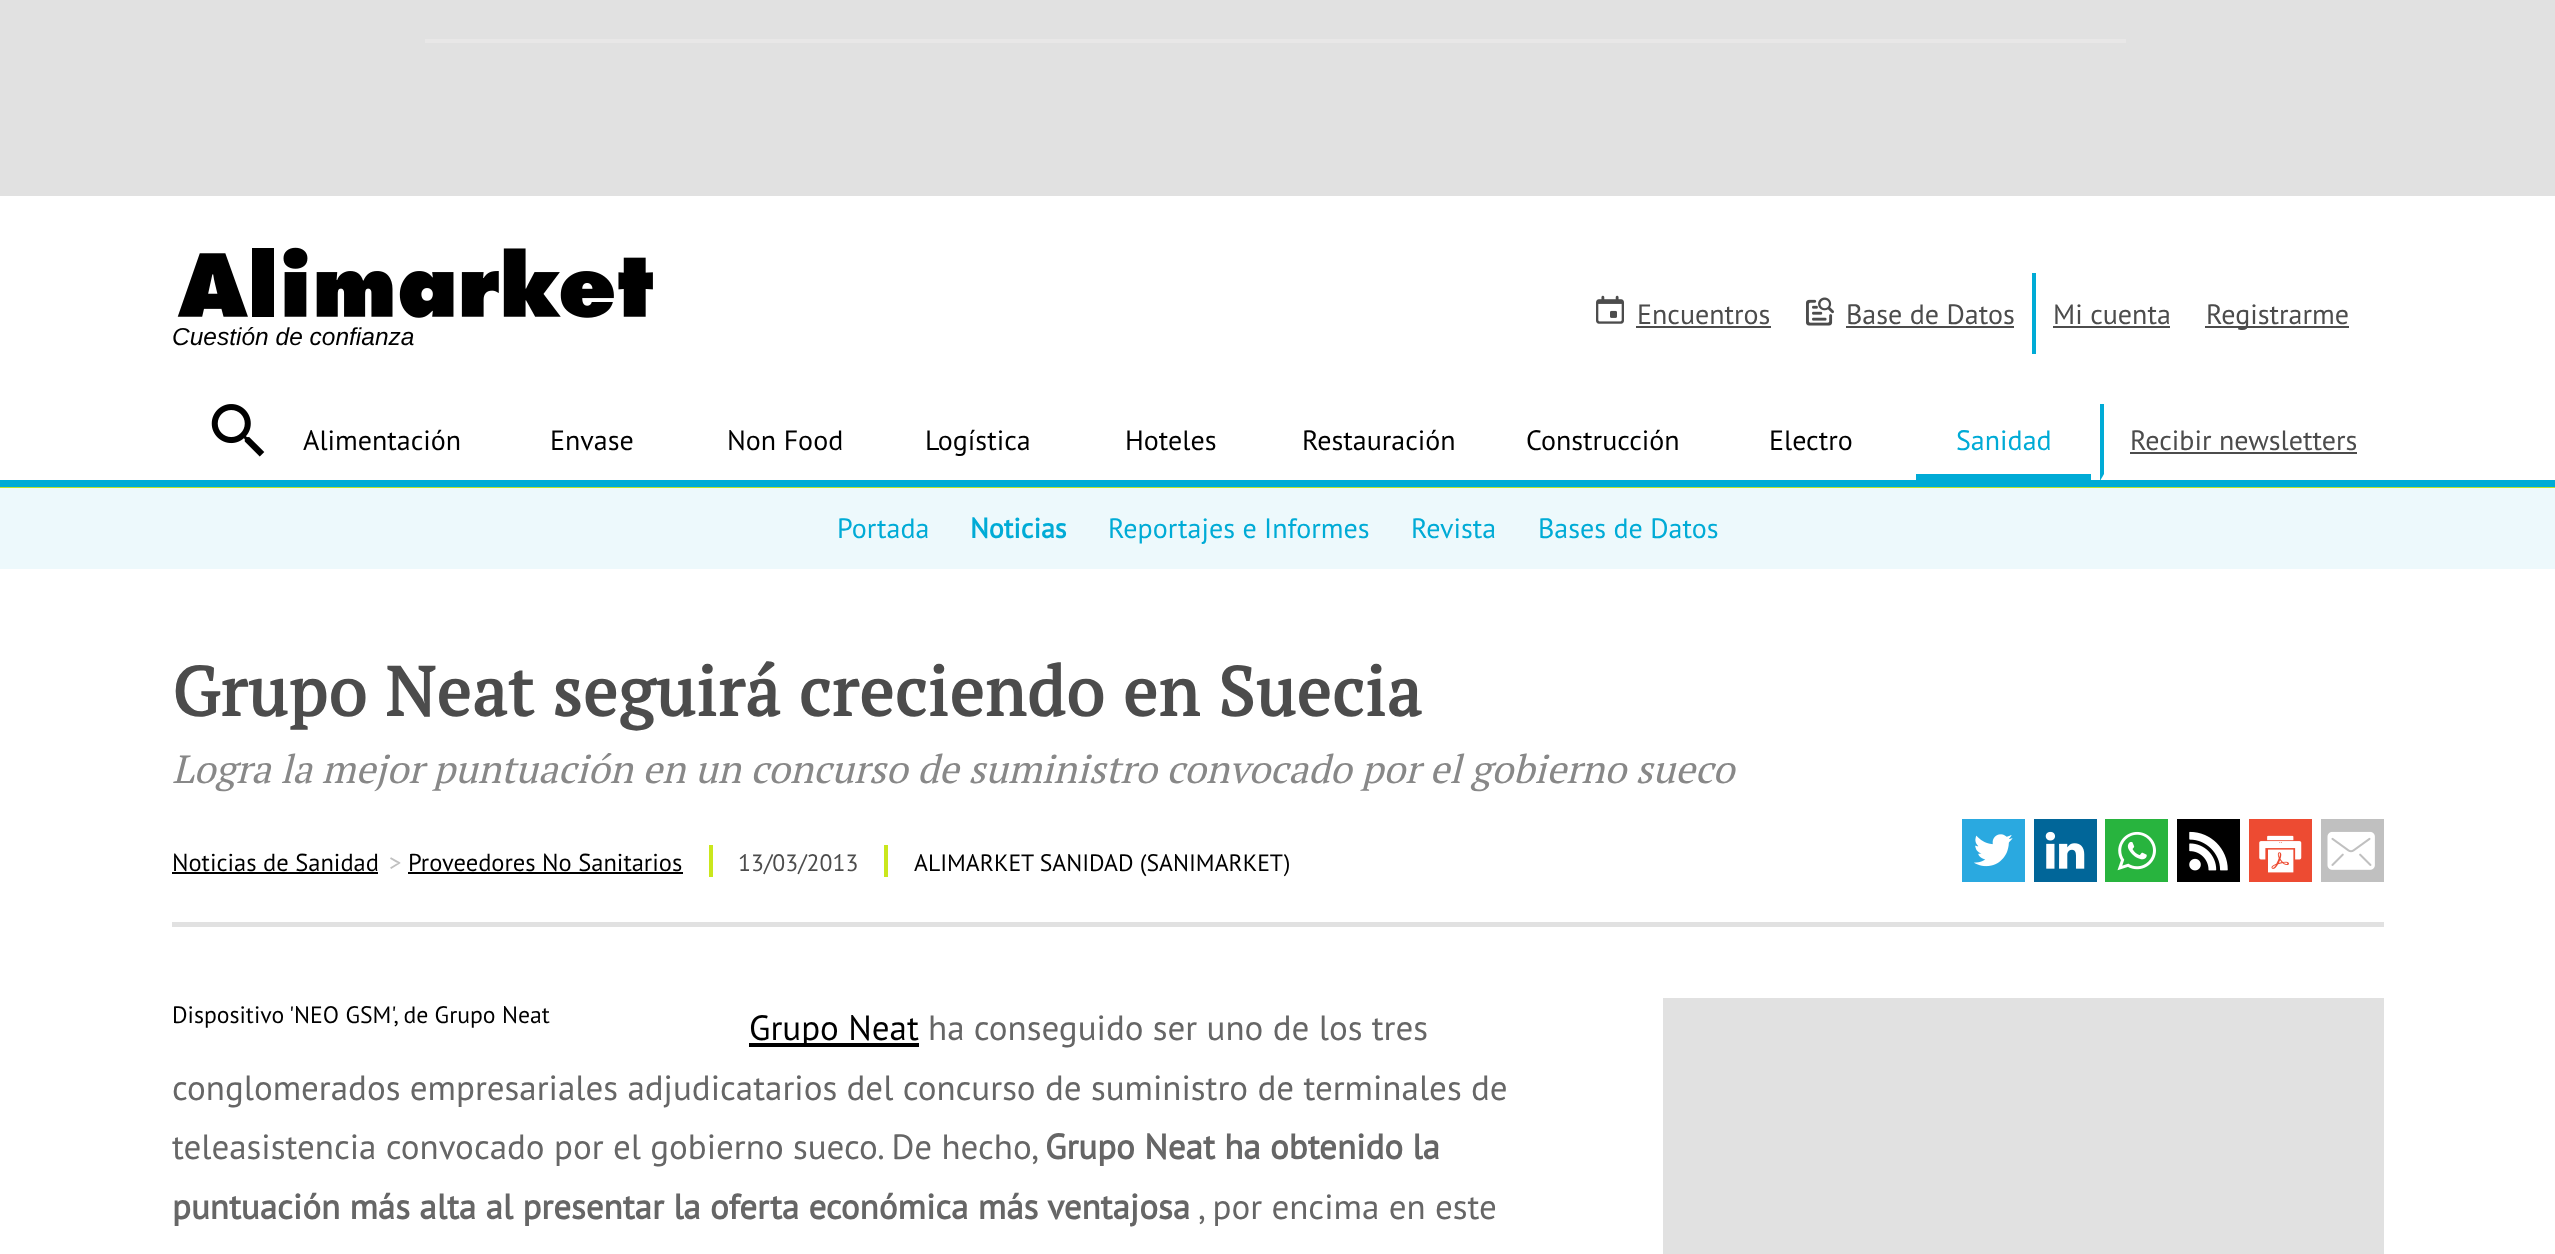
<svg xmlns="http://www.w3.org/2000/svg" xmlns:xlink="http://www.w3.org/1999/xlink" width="2555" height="1254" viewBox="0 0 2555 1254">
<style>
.cls-1{font:28px PT Sans;fill:#4c4c4c}
.cls-2{font:italic 24.5px Liberation Sans;fill:#000000}
.cls-3{font:28px PT Sans;fill:#000000}
.cls-4{font:28px PT Sans;fill:#00abd6}
.cls-5{font:bold 28px PT Sans;fill:#00abd6}
.cls-6{font:bold 69px PT Serif;letter-spacing:0.9px;fill:#4c4c4c}
.cls-7{font:italic 39.25px PT Serif;fill:#888888}
.cls-8{font:24.5px PT Sans;fill:#000000}
.cls-9{font:24.5px PT Sans;fill:#c0c0c0}
.cls-10{font:23.75px PT Sans;fill:#4c4c4c}
.cls-11{font:23.75px PT Sans;fill:#000000}
.cls-12{font:35px PT Sans;fill:#000000}
.cls-13{font:35px PT Sans;fill:#666666}
.cls-14{font:bold 35px PT Sans;fill:#666666}
</style>
<rect width="100%" height="100%" fill="#ffffff"/>
<rect fill="#edf9fc" x="0" y="488" width="2555" height="81"/>
<rect fill="#e1e1e1" x="0" y="0" width="2555" height="196"/>
<rect fill="#e8e7e7" x="425" y="39" width="1701" height="4"/>
<image xlink:href="image0.png" x="1596" y="295" width="28" height="29"/>
<rect fill="#4c4c4c" x="1636" y="326" width="135" height="2"/>
<rect fill="#00abd6" x="2032" y="273" width="4" height="81"/>
<image xlink:href="image1.png" x="1806" y="297" width="28" height="29"/>
<rect fill="#4c4c4c" x="1846" y="326" width="168" height="2"/>
<rect fill="#4c4c4c" x="2053" y="326" width="117" height="2"/>
<rect fill="#4c4c4c" x="2205" y="326" width="144" height="2"/>
<image xlink:href="image2.png" x="177" y="247" width="476" height="71"/>
<image xlink:href="image3.png" x="211" y="404" width="54" height="53"/>
<rect fill="#00abd6" x="1916" y="474" width="175" height="6"/>
<path fill="#00abd6" d="M2100 481V404H2104V474Z"/>
<rect fill="#00abd6" x="0" y="480" width="2555" height="7"/>
<rect fill="#4c4c4c" x="2130" y="452" width="227" height="2"/>
<rect fill="#bce32a" x="0" y="487" width="2555" height="1"/>
<rect fill="#e1e1e1" x="172" y="922" width="2212" height="5"/>
<rect fill="#cae71d" x="709" y="845" width="4" height="32"/>
<rect fill="#000000" x="172" y="872" width="206" height="2"/>
<rect fill="#000000" x="408" y="872" width="275" height="2"/>
<rect fill="#cae71d" x="884" y="845" width="4" height="32"/>
<rect fill="#2aa9e0" x="1962" y="819" width="63" height="63"/>
<image xlink:href="image4.png" x="1974" y="834" width="39" height="33"/>
<rect fill="#016699" x="2034" y="819" width="63" height="63"/>
<image xlink:href="image5.png" x="2045" y="831" width="40" height="38"/>
<rect fill="#28b43e" x="2105" y="819" width="63" height="63"/>
<image xlink:href="image6.png" x="2117" y="831" width="39" height="40"/>
<rect fill="#000000" x="2177" y="819" width="63" height="63"/>
<image xlink:href="image7.png" x="2189" y="831" width="39" height="40"/>
<rect fill="#ed4b32" x="2249" y="819" width="63" height="63"/>
<image xlink:href="image8.png" x="2259" y="835" width="43" height="38"/>
<rect fill="#c0c0c0" x="2321" y="819" width="63" height="63"/>
<image xlink:href="image9.png" x="2327" y="831" width="48" height="39"/>
<rect fill="#000000" x="749" y="1043" width="170" height="4"/>
<rect fill="#e1e1e1" x="1663" y="998" width="721" height="256"/>
<text class="cls-1" x="1637" y="324">Encuentros</text>
<text class="cls-1" x="1846" y="324">Base de Datos</text>
<text class="cls-1" x="2053" y="324">Mi cuenta</text>
<text class="cls-1" x="2206" y="324">Registrarme</text>
<text class="cls-2" x="172" y="345">Cuestión de confianza</text>
<text class="cls-3" x="303" y="450">Alimentación</text>
<text class="cls-3" x="550" y="450">Envase</text>
<text class="cls-3" x="727" y="450">Non Food</text>
<text class="cls-3" x="925" y="450">Logística</text>
<text class="cls-3" x="1302" y="450">Restauración</text>
<text class="cls-3" x="1526" y="450">Construcción</text>
<text class="cls-4" x="1956" y="450">Sanidad</text>
<text class="cls-4" x="837" y="538">Portada</text>
<text class="cls-5" x="970" y="538">Noticias</text>
<text class="cls-4" x="1108" y="538">Reportajes e Informes</text>
<text class="cls-4" x="1411" y="538">Revista</text>
<text class="cls-4" x="1538" y="538">Bases de Datos</text>
<text class="cls-3" x="1125" y="450">Hoteles</text>
<text class="cls-3" x="1769" y="450">Electro</text>
<text class="cls-1" x="2130" y="450">Recibir newsletters</text>
<text class="cls-6" x="172" y="716">Grupo Neat seguirá creciendo en Suecia</text>
<text class="cls-7" x="172" y="783">Logra la mejor puntuación en un concurso de suministro convocado por el gobierno sueco</text>
<text class="cls-8" x="172" y="871">Noticias de Sanidad</text>
<text class="cls-9" x="389" y="871">&gt;</text>
<text class="cls-8" x="408" y="871">Proveedores No Sanitarios</text>
<text class="cls-10" x="738" y="871">13/03/2013</text>
<text class="cls-11" x="914" y="871">ALIMARKET SANIDAD (SANIMARKET)</text>
<text class="cls-11" x="172" y="1023">Dispositivo 'NEO GSM', de Grupo Neat</text>
<text class="cls-12" x="749" y="1040">Grupo Neat</text>
<text class="cls-13" x="928" y="1040">ha conseguido ser uno de los tres</text>
<text class="cls-13"><tspan x="172" y="1100">conglomerados empresariales adjudicatarios del concurso de suministro de terminales de</tspan><tspan x="172" y="1159">teleasistencia convocado por el gobierno sueco. De hecho,</tspan></text>
<text class="cls-14" x="1045" y="1159">Grupo Neat ha obtenido la</text>
<text class="cls-14" x="172" y="1219">puntuación más alta al presentar la oferta económica más ventajosa</text>
<text class="cls-13" x="1198" y="1219">, por encima en este</text>
</svg>
